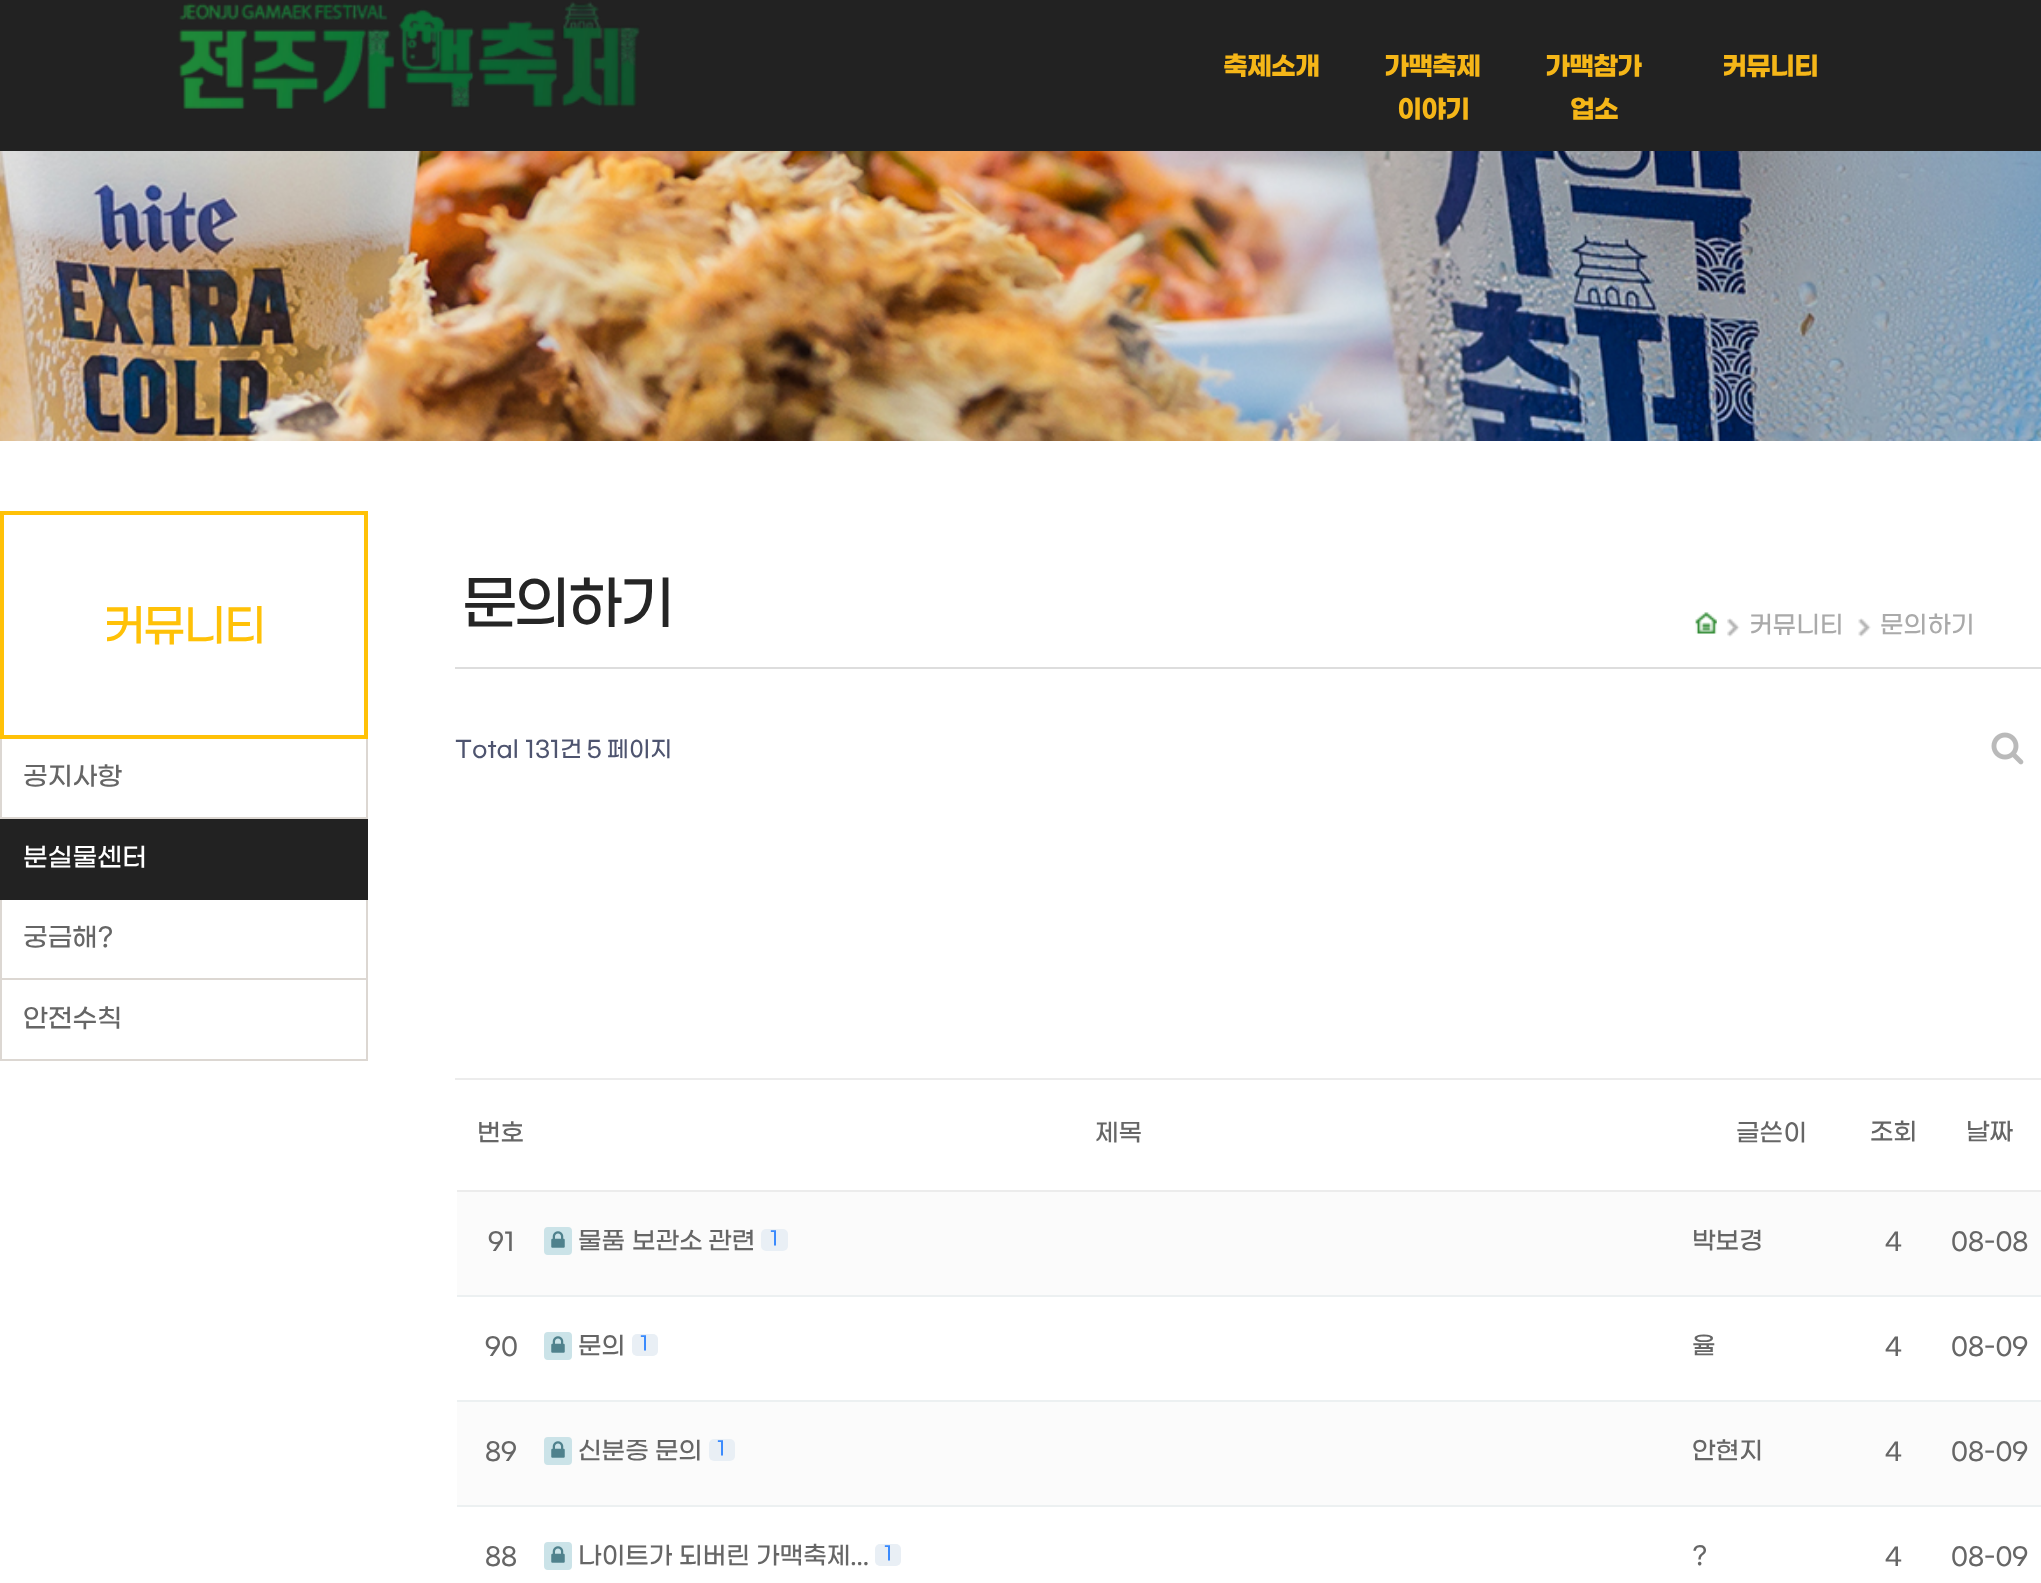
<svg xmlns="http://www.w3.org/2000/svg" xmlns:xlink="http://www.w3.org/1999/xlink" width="2041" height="1583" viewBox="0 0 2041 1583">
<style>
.cls-1{font:bold 26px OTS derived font;letter-spacing:-1px;fill:#f5b618}
.cls-2{font:500 44px OTS derived font;letter-spacing:-2px;fill:#ffc107}
.cls-3{font:500 25.75px OTS derived font;fill:#666666}
.cls-4{font:500 25.75px OTS derived font;fill:#ffffff}
.cls-5{font:500 58px OTS derived font;letter-spacing:-3.5px;fill:#252525}
.cls-6{font:500 24.5px OTS derived font;fill:#aaaaaa}
.cls-7{font:500 22.5px OTS derived font;fill:#4e546f}
.cls-8{font:500 24.5px OTS derived font;fill:#666666}
.cls-9{font:500 19px OTS derived font;fill:#3a8afd}
</style>
<rect width="100%" height="100%" fill="#ffffff"/>
<rect fill="#222222" x="0" y="0" width="2041" height="151"/>
<image xlink:href="image0.png" x="178" y="1" width="462" height="108"/>
<image xlink:href="image1.png" x="0" y="151" width="2041" height="290"/>
<rect fill="none" stroke="#ffc107" stroke-width="4" x="2" y="513" width="364" height="224"/>
<rect fill="#dcd7d2" x="366" y="739" width="2" height="80"/>
<rect fill="#dcd7d2" x="0" y="817" width="368" height="2"/>
<rect fill="#dcd7d2" x="0" y="739" width="2" height="80"/>
<rect fill="#222222" x="0" y="819" width="368" height="81"/>
<rect fill="#dcd7d2" x="366" y="900" width="2" height="161"/>
<rect fill="#dcd7d2" x="0" y="978" width="368" height="2"/>
<rect fill="#dcd7d2" x="0" y="900" width="2" height="80"/>
<rect fill="#dcd7d2" x="0" y="1059" width="368" height="2"/>
<rect fill="#dcd7d2" x="0" y="980" width="2" height="81"/>
<rect fill="#dddddd" x="455" y="667" width="1586" height="2"/>
<image xlink:href="image2.png" x="1695" y="612" width="22" height="22"/>
<image xlink:href="image3.png" x="1727" y="618" width="13" height="19"/>
<image xlink:href="image4.png" x="1858" y="618" width="13" height="19"/>
<image xlink:href="image5.png" x="1991" y="732" width="33" height="33"/>
<rect fill="#ececec" x="455" y="1078" width="1586" height="2"/>
<rect fill="#ececec" x="457" y="1190" width="1584" height="2"/>
<rect fill="#fbfbfb" x="457" y="1192" width="1584" height="103"/>
<rect fill="#cbe3e8" stroke="#cbe3e8" stroke-width="2" x="545" y="1228" width="26" height="26" rx="3"/>
<image xlink:href="image6.png" x="551" y="1231" width="14" height="17"/>
<rect fill="#e9eff5" x="761" y="1229" width="27" height="22" rx="5"/>
<rect fill="#cbe3e8" stroke="#cbe3e8" stroke-width="2" x="545" y="1333" width="26" height="26" rx="3"/>
<image xlink:href="image6.png" x="551" y="1336" width="14" height="17"/>
<rect fill="#e9eff5" x="632" y="1334" width="26" height="22" rx="5"/>
<rect fill="#ecf0f1" x="457" y="1295" width="1584" height="2"/>
<rect fill="#fbfbfb" x="457" y="1402" width="1584" height="103"/>
<rect fill="#cbe3e8" stroke="#cbe3e8" stroke-width="2" x="545" y="1438" width="26" height="26" rx="3"/>
<image xlink:href="image6.png" x="551" y="1441" width="14" height="17"/>
<rect fill="#e9eff5" x="709" y="1439" width="26" height="22" rx="5"/>
<rect fill="#ecf0f1" x="457" y="1400" width="1584" height="2"/>
<rect fill="#cbe3e8" stroke="#cbe3e8" stroke-width="2" x="545" y="1543" width="26" height="26" rx="3"/>
<image xlink:href="image6.png" x="551" y="1546" width="14" height="17"/>
<rect fill="#e9eff5" x="875" y="1544" width="26" height="22" rx="5"/>
<rect fill="#ecf0f1" x="457" y="1505" width="1584" height="2"/>
<text class="cls-1" x="1223" y="74">축제소개</text>
<text class="cls-1" x="1384" y="74">가맥축제</text>
<text class="cls-1" x="1397" y="117">이야기</text>
<text class="cls-1" x="1545" y="74">가맥참가</text>
<text class="cls-1" x="1570" y="117">업소</text>
<text class="cls-1" x="1722" y="74">커뮤니티</text>
<text class="cls-2" x="103" y="639">커뮤니티</text>
<text class="cls-3" x="23" y="784">공지사항</text>
<text class="cls-4" x="23" y="865">분실물센터</text>
<text class="cls-3" x="23" y="945">궁금해?</text>
<text class="cls-3" x="23" y="1026">안전수칙</text>
<text class="cls-5" x="462" y="621">문의하기</text>
<text class="cls-6" x="1749" y="632">커뮤니티</text>
<text class="cls-6" x="1880" y="632">문의하기</text>
<text class="cls-7" x="455" y="756">Total</text>
<text class="cls-7" x="525" y="756">131건</text>
<text class="cls-7" x="587" y="756">5</text>
<text class="cls-7" x="607" y="756">페이지</text>
<text class="cls-8" x="477" y="1140">번호</text>
<text class="cls-8" x="1095" y="1140">제목</text>
<text class="cls-8" x="1736" y="1140">글쓴이</text>
<text class="cls-8" x="1870" y="1139">조회</text>
<text class="cls-8" x="1966" y="1139">날짜</text>
<text class="cls-8" x="488" y="1249">91</text>
<text class="cls-8" x="578" y="1248">물품</text>
<text class="cls-8" x="632" y="1248">보관소</text>
<text class="cls-8" x="708" y="1248">관련</text>
<text class="cls-9" x="770" y="1244">1</text>
<text class="cls-8" x="1692" y="1248">박보경</text>
<text class="cls-8" x="1885" y="1249">4</text>
<text class="cls-8" x="1951" y="1249">08-08</text>
<text class="cls-8" x="485" y="1354">90</text>
<text class="cls-8" x="578" y="1353">문의</text>
<text class="cls-9" x="640" y="1349">1</text>
<text class="cls-8" x="1692" y="1353">율</text>
<text class="cls-8" x="1885" y="1354">4</text>
<text class="cls-8" x="1951" y="1354">08-09</text>
<text class="cls-8" x="485" y="1459">89</text>
<text class="cls-8" x="578" y="1458">신분증</text>
<text class="cls-8" x="655" y="1458">문의</text>
<text class="cls-9" x="717" y="1454">1</text>
<text class="cls-8" x="1692" y="1458">안현지</text>
<text class="cls-8" x="1885" y="1459">4</text>
<text class="cls-8" x="1951" y="1459">08-09</text>
<text class="cls-8" x="485" y="1564">88</text>
<text class="cls-8" x="578" y="1563">나이트가</text>
<text class="cls-8" x="679" y="1563">되버린</text>
<text class="cls-8" x="756" y="1563">가맥축제...</text>
<text class="cls-9" x="884" y="1559">1</text>
<text class="cls-8" x="1692" y="1563">?</text>
<text class="cls-8" x="1885" y="1564">4</text>
<text class="cls-8" x="1951" y="1564">08-09</text>
</svg>
